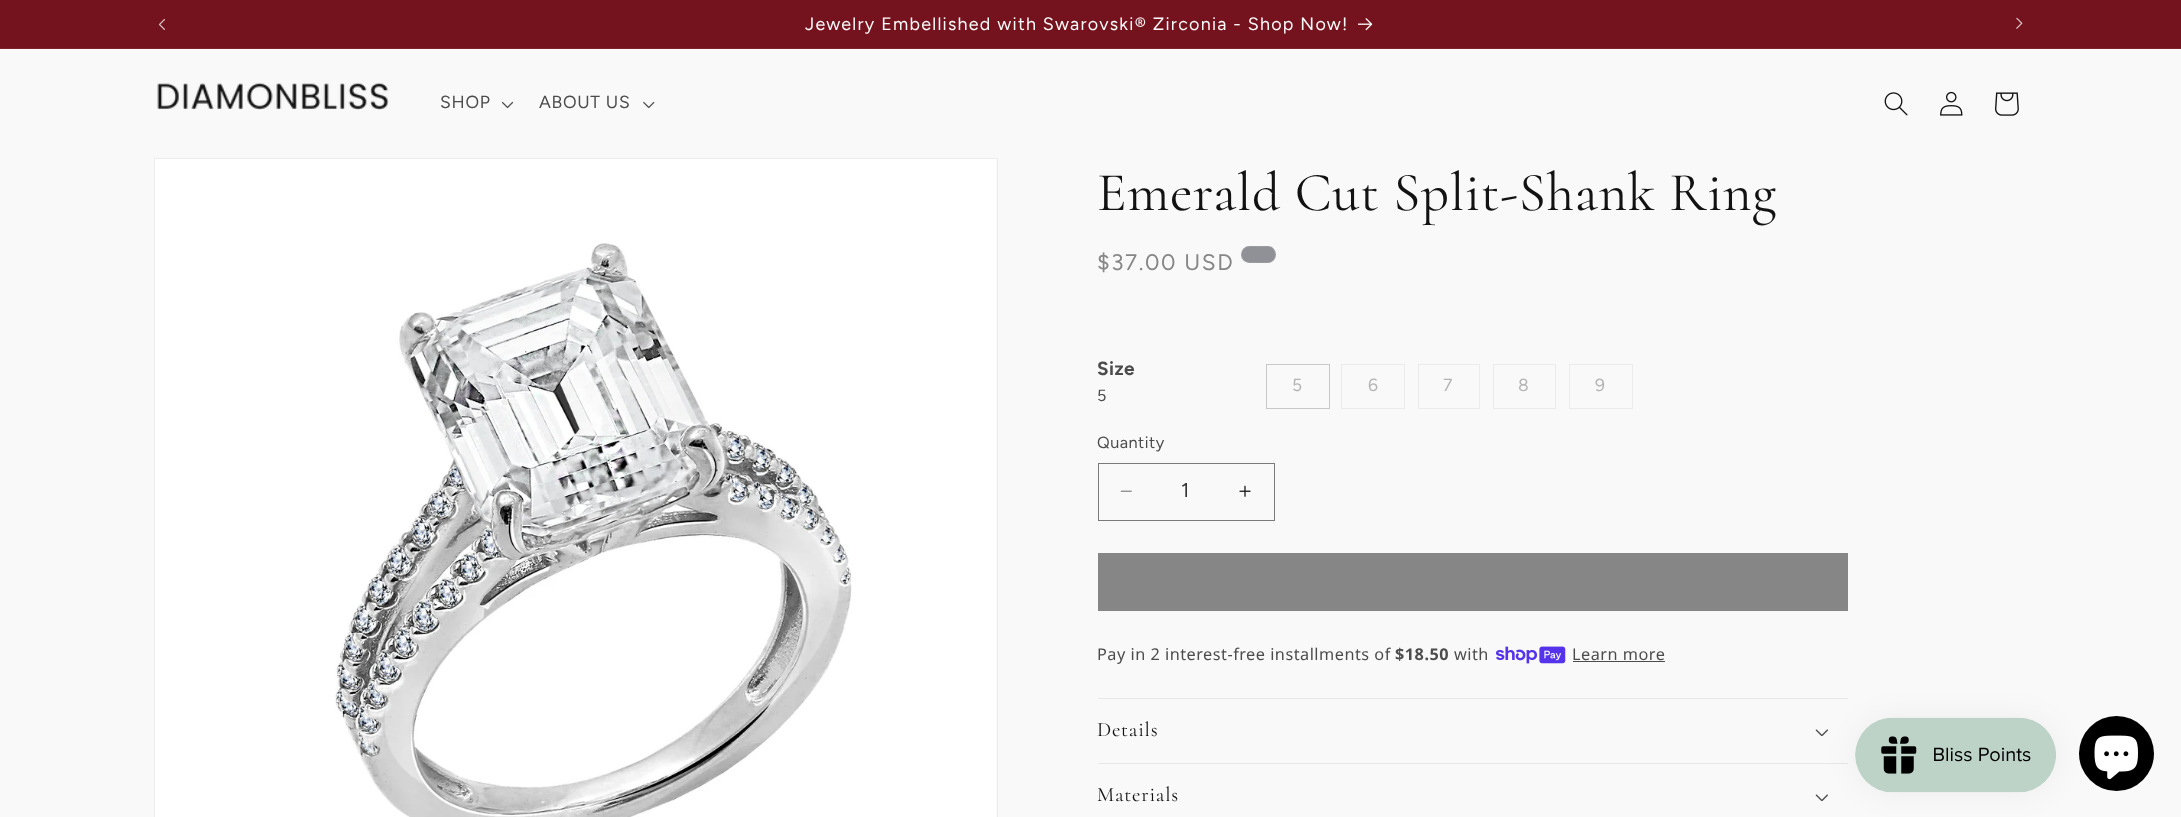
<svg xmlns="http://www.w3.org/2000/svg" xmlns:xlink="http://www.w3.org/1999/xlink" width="2181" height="817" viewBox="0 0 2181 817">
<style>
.cls-1{font:17.9px Figtree;letter-spacing:1.25px;fill:#f9f9f9}
.cls-2{font:17.5px Figtree;letter-spacing:0.75px;fill:#4c4c4c}
.cls-3{font:55px Cormorant;letter-spacing:0.8px;fill:#121212}
.cls-4{font:22.5px Figtree;letter-spacing:1.6px;fill:#868686}
.cls-5{font:bold 19px Figtree;letter-spacing:0.5px;fill:#4c4c4c}
.cls-6{font:16.25px Figtree;letter-spacing:0.5px;fill:#4c4c4c}
.cls-7{font:17.5px Figtree;letter-spacing:1.25px;fill:#b4b4b4}
.cls-8{font:20px Figtree;fill:#353535}
.cls-9{font:16.25px Noto Sans;letter-spacing:0.5px;fill:#4c4c4c}
.cls-10{font:bold 16.25px Noto Sans;letter-spacing:0.5px;fill:#4c4c4c}
.cls-11{font:20.5px Cormorant;letter-spacing:0.8px;fill:#121212}
</style>
<rect width="100%" height="100%" fill="#f9f9f9"/>
<rect fill="#74121d" x="0" y="0" width="2181" height="48"/>
<rect fill="#7f242f" x="0" y="48" width="2181" height="1"/>
<image xlink:href="image0.png" x="158" y="18" width="7" height="12"/>
<image xlink:href="image1.png" x="1358" y="18" width="15" height="13"/>
<image xlink:href="image2.png" x="2016" y="17" width="7" height="12"/>
<image xlink:href="image3.png" x="157" y="82" width="232" height="28"/>
<image xlink:href="image4.png" x="501" y="101" width="13" height="8"/>
<image xlink:href="image5.png" x="643" y="101" width="12" height="8"/>
<image xlink:href="image6.png" x="1884" y="92" width="24" height="24"/>
<image xlink:href="image7.png" x="1940" y="91" width="23" height="25"/>
<image xlink:href="image8.png" x="1995" y="92" width="24" height="24"/>
<rect fill="none" stroke="#ededed" x="154.5" y="158.5" width="843" height="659"/>
<image xlink:href="image9.png" x="155" y="159" width="841" height="658"/>
<rect fill="#8f9196" x="1241" y="246" width="35" height="17" rx="8.5"/>
<rect fill="none" stroke="#fcfcfc" stroke-opacity="0.1" x="1241.5" y="246.5" width="34" height="16" rx="8"/>
<rect fill="none" stroke="#c6c9c8" x="1266.5" y="364.5" width="63" height="44"/>
<rect fill="none" stroke="#ebebeb" x="1341.5" y="364.5" width="63" height="44"/>
<rect fill="none" stroke="#ebebeb" x="1418.5" y="364.5" width="61" height="44"/>
<rect fill="none" stroke="#ebebeb" x="1493.5" y="364.5" width="62" height="44"/>
<rect fill="none" stroke="#ebebeb" x="1569.5" y="364.5" width="63" height="44"/>
<image xlink:href="image10.png" x="1120" y="490" width="12" height="2"/>
<image xlink:href="image11.png" x="1239" y="485" width="12" height="12"/>
<rect fill="none" stroke="#7a7a7a" x="1098.5" y="463.5" width="176" height="57"/>
<rect fill="#868686" x="1098" y="553" width="750" height="58"/>
<image xlink:href="image12.png" x="1496" y="646" width="70" height="18"/>
<rect fill="#4c4c4c" x="1573" y="661" width="92" height="1"/>
<rect fill="#e7e7e7" x="1098" y="698" width="750" height="1"/>
<rect fill="#e7e7e7" x="1098" y="763" width="750" height="1"/>
<image xlink:href="image13.png" x="1815" y="729" width="13" height="7"/>
<image xlink:href="image13.png" x="1815" y="794" width="13" height="7"/>
<circle fill="#000000" cx="2116.5" cy="753.5" r="37.5"/>
<image xlink:href="image15.png" x="2094" y="735" width="44" height="45"/>
<rect fill="#000000" fill-opacity="0.05" filter="blur(15.5px)" x="1855" y="718" width="201" height="75" rx="37.5"/>
<image xlink:href="image14.png" x="1855" y="717" width="201" height="76"/>
<text class="cls-1" x="805" y="30">Jewelry Embellished with Swarovski® Zirconia - Shop Now!</text>
<text class="cls-2" x="440" y="108">SHOP</text>
<text class="cls-2" x="539" y="108">ABOUT US</text>
<text class="cls-3" x="1097" y="210">Emerald Cut Split-Shank Ring</text>
<text class="cls-4" x="1097" y="270">$37.00 USD</text>
<text class="cls-5" x="1097" y="375">Size</text>
<text class="cls-6" x="1097" y="401">5</text>
<text class="cls-7" x="1292" y="391">5</text>
<text class="cls-7" x="1368" y="391">6</text>
<text class="cls-7" x="1443" y="391">7</text>
<text class="cls-7" x="1518" y="391">8</text>
<text class="cls-7" x="1595" y="391">9</text>
<text class="cls-6" x="1097" y="448">Quantity</text>
<text class="cls-8" x="1181" y="497">1</text>
<text class="cls-9" x="1097" y="660">Pay in 2 interest-free installments of</text>
<text class="cls-10" x="1395" y="660">$18.50</text>
<text class="cls-9" x="1454" y="660">with</text>
<text class="cls-9" x="1572" y="660">Learn more</text>
<text class="cls-11" x="1097" y="736">Details</text>
<text class="cls-11" x="1097" y="801">Materials</text>
</svg>
